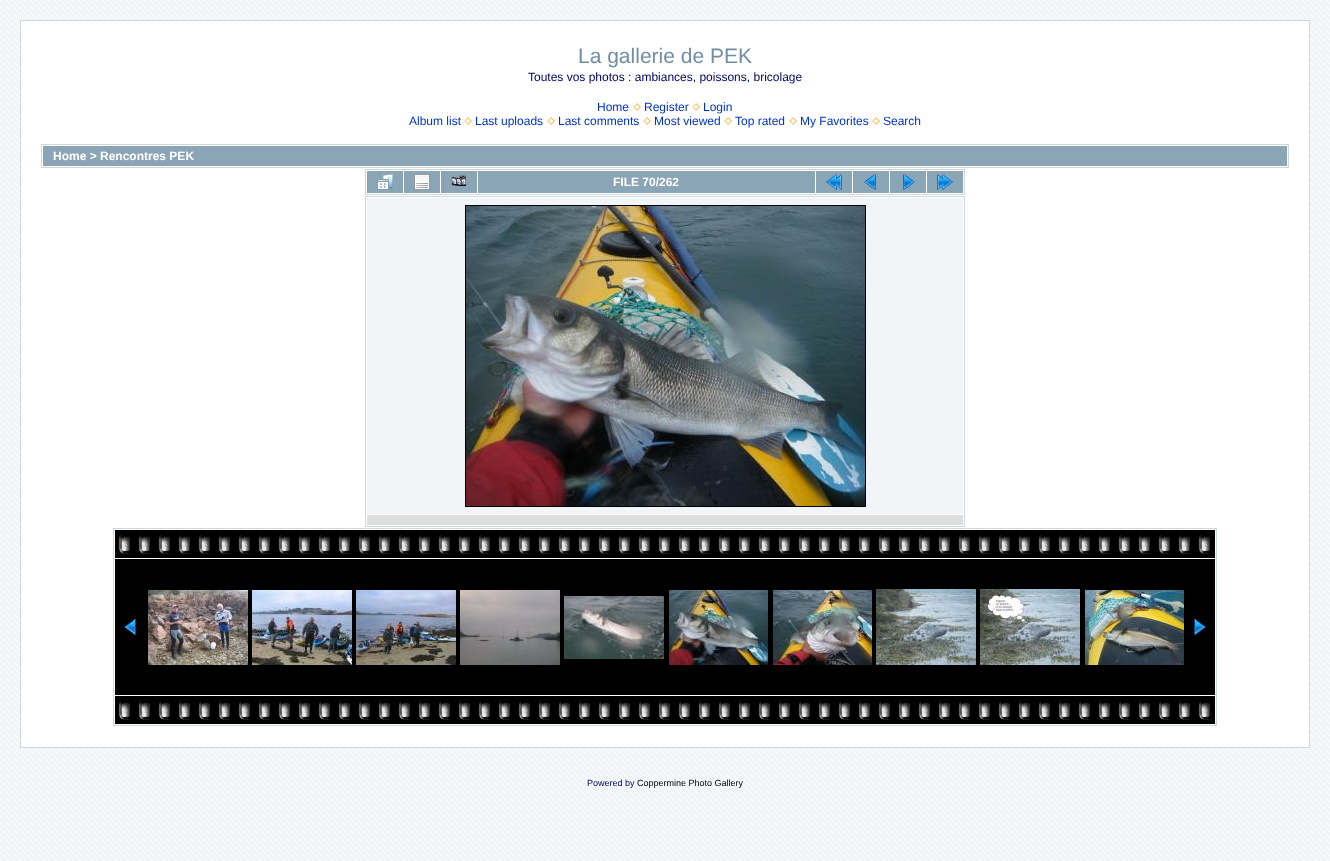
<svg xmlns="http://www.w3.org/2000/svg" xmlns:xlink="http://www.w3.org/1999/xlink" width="1330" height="861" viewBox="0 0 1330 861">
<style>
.cls-1{font:21px Liberation Sans;fill:#718ea5}
.cls-2{font:12px Liberation Sans;fill:#000666}
.cls-3{font:12px Liberation Sans;fill:#0033cc}
.cls-4{font:bold 12px Liberation Sans;fill:#ffffff}
.cls-5{font:9px Liberation Sans;fill:#000666}
.cls-6{font:9px Liberation Sans;fill:#000000}
</style>
<rect width="100%" height="100%" fill="#f2f5f7"/>
<image xlink:href="image0.png" x="0" y="0" width="1330" height="861"/>
<rect fill="#ffffff" stroke="#ccd7e0" x="20.5" y="20.5" width="1289" height="727"/>
<image xlink:href="image1.png" x="633" y="103" width="8" height="8"/>
<image xlink:href="image1.png" x="692" y="103" width="8" height="8"/>
<image xlink:href="image1.png" x="464" y="117" width="8" height="8"/>
<image xlink:href="image1.png" x="547" y="117" width="8" height="8"/>
<image xlink:href="image1.png" x="643" y="117" width="8" height="8"/>
<image xlink:href="image1.png" x="724" y="117" width="8" height="8"/>
<image xlink:href="image1.png" x="789" y="117" width="8" height="8"/>
<image xlink:href="image1.png" x="872" y="117" width="8" height="8"/>
<rect fill="none" stroke="#ccd7e0" x="41.5" y="144.5" width="1247" height="23"/>
<rect fill="#8aa5b5" x="43" y="146" width="1244" height="20"/>
<rect fill="none" stroke="#ccd7e0" x="365.5" y="169.5" width="599" height="25"/>
<rect fill="#8aa5b5" x="367" y="171" width="36" height="22"/>
<image xlink:href="image2.png" x="377" y="174" width="16" height="16"/>
<rect fill="#8aa5b5" x="404" y="171" width="36" height="22"/>
<image xlink:href="image3.png" x="414" y="174" width="16" height="16"/>
<rect fill="#8aa5b5" x="441" y="171" width="36" height="22"/>
<image xlink:href="image4.png" x="451" y="175" width="16" height="12"/>
<rect fill="#8aa5b5" x="478" y="171" width="337" height="22"/>
<rect fill="#8aa5b5" x="816" y="171" width="36" height="22"/>
<image xlink:href="image5.png" x="826" y="174" width="16" height="16"/>
<rect fill="#8aa5b5" x="853" y="171" width="36" height="22"/>
<image xlink:href="image6.png" x="864" y="174" width="12" height="16"/>
<rect fill="#8aa5b5" x="890" y="171" width="36" height="22"/>
<image xlink:href="image7.png" x="903" y="174" width="12" height="16"/>
<rect fill="#8aa5b5" x="927" y="171" width="36" height="22"/>
<image xlink:href="image8.png" x="937" y="174" width="16" height="16"/>
<rect fill="none" stroke="#ccd7e0" x="365.5" y="196.5" width="599" height="330"/>
<rect fill="#f2f5f7" x="367" y="198" width="596" height="316"/>
<rect fill="none" stroke="#000000" x="465.5" y="205.5" width="400" height="301"/>
<image xlink:href="image9.png" x="466" y="206" width="399" height="300"/>
<rect fill="#dddddd" x="367" y="515" width="596" height="10"/>
<rect fill="none" stroke="#ccd7e0" x="113.5" y="528.5" width="1103" height="197"/>
<rect fill="#000000" x="115" y="530" width="1100" height="28"/>
<image xlink:href="image10.png" x="118" y="530" width="1094" height="24"/>
<rect fill="#000000" x="115" y="559" width="1100" height="136"/>
<image xlink:href="image11.png" x="124" y="619" width="12" height="16"/>
<image xlink:href="image12.png" x="148" y="590" width="100" height="75"/>
<image xlink:href="image13.png" x="252" y="590" width="100" height="75"/>
<image xlink:href="image14.png" x="356" y="590" width="100" height="75"/>
<image xlink:href="image15.png" x="460" y="590" width="100" height="75"/>
<image xlink:href="image16.png" x="564" y="596" width="100" height="63"/>
<image xlink:href="image17.png" x="669" y="590" width="99" height="75"/>
<image xlink:href="image18.png" x="773" y="590" width="99" height="75"/>
<image xlink:href="image19.png" x="876" y="589" width="100" height="76"/>
<image xlink:href="image20.png" x="980" y="589" width="100" height="76"/>
<image xlink:href="image21.png" x="1085" y="590" width="99" height="75"/>
<image xlink:href="image22.png" x="1194" y="619" width="12" height="16"/>
<rect fill="#000000" x="115" y="696" width="1100" height="28"/>
<image xlink:href="image10.png" x="118" y="696" width="1094" height="24"/>
<text class="cls-1" x="578" y="63">La gallerie de PEK</text>
<text class="cls-2" x="528" y="81">Toutes vos photos : ambiances, poissons, bricolage</text>
<text class="cls-3" x="597" y="111">Home</text>
<text class="cls-3" x="644" y="111">Register</text>
<text class="cls-3" x="703" y="111">Login</text>
<text class="cls-3" x="409" y="125">Album list</text>
<text class="cls-3" x="475" y="125">Last uploads</text>
<text class="cls-3" x="558" y="125">Last comments</text>
<text class="cls-3" x="654" y="125">Most viewed</text>
<text class="cls-3" x="735" y="125">Top rated</text>
<text class="cls-3" x="800" y="125">My Favorites</text>
<text class="cls-3" x="883" y="125">Search</text>
<text class="cls-4" x="53" y="160">Home &gt; Rencontres PEK</text>
<text class="cls-4" x="613" y="186">FILE 70/262</text>
<text class="cls-5" x="587" y="786">Powered by</text>
<text class="cls-6" x="637" y="786">Coppermine Photo Gallery</text>
</svg>
